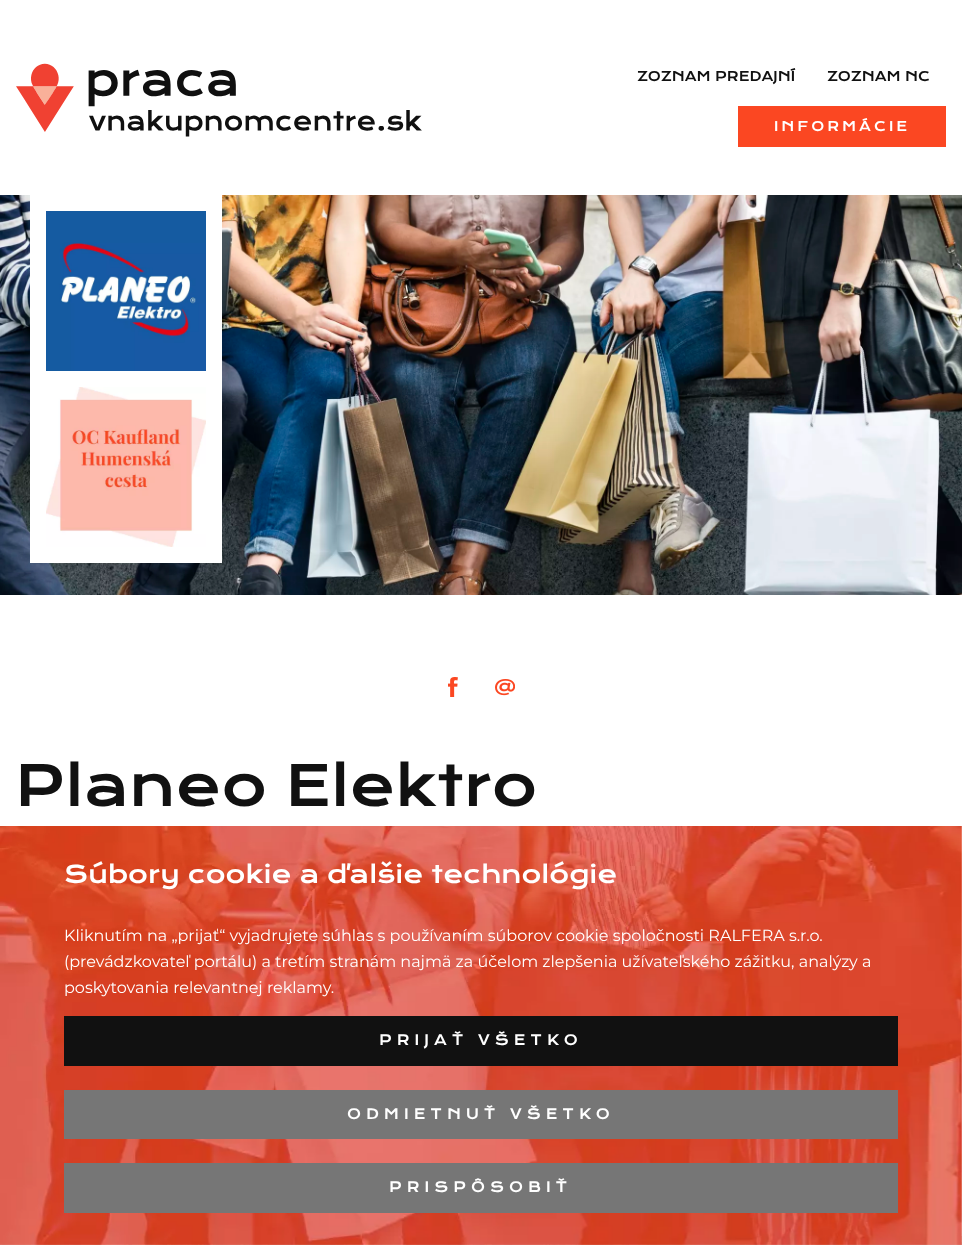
<svg xmlns="http://www.w3.org/2000/svg" xmlns:xlink="http://www.w3.org/1999/xlink" width="962" height="1245" viewBox="0 0 962 1245">
<style>
.cls-1{font:13px Krona One;fill:#111111}
.cls-2{font:13px Krona One;letter-spacing:3px;fill:#ffffff}
.cls-3{font:55px Krona One;fill:#111111}
.cls-4{font:24px Krona One;fill:#ffffff}
.cls-5{font:100 16px Montserrat;fill:#ffffff}
.cls-6{font:14px Krona One;letter-spacing:5px;fill:#ffffff}
</style>
<rect width="100%" height="100%" fill="#ffffff"/>
<image xlink:href="image0.png" x="16" y="63" width="406" height="74"/>
<rect fill="#fb4722" x="738" y="106" width="208" height="41"/>
<image xlink:href="image1.png" x="0" y="195" width="962" height="400"/>
<rect fill="#ffffff" x="30" y="195" width="192" height="368"/>
<image xlink:href="image2.png" x="46" y="211" width="160" height="160"/>
<image xlink:href="image3.png" x="46" y="387" width="160" height="160"/>
<image xlink:href="image4.png" x="448" y="677" width="10" height="20"/>
<image xlink:href="image5.png" x="495" y="679" width="20" height="17"/>
<image xlink:href="image7.png" x="0" y="1236" width="962" height="9"/>
<image xlink:href="image6.png" x="0" y="826" width="962" height="419"/>
<rect fill="#111111" x="64" y="1016" width="834" height="50"/>
<rect fill="#767676" x="64" y="1090" width="834" height="49"/>
<rect fill="#767676" x="64" y="1163" width="834" height="50"/>
<text class="cls-1" x="637" y="81">ZOZNAM PREDAJNÍ</text>
<text class="cls-1" x="827" y="81">ZOZNAM NC</text>
<text class="cls-2" x="774" y="131">INFORMÁCIE</text>
<text class="cls-3" x="15" y="806">Planeo Elektro</text>
<text class="cls-4" x="64" y="883">Súbory cookie a ďalšie technológie</text>
<text class="cls-5"><tspan x="64" y="941">Kliknutím na „prijať“ vyjadrujete súhlas s používaním súborov cookie spoločnosti RALFERA s.r.o.</tspan><tspan x="64" y="967">(prevádzkovateľ portálu) a tretím stranám najmä za účelom zlepšenia užívateľského zážitku, analýzy a</tspan><tspan x="64" y="993">poskytovania relevantnej reklamy.</tspan></text>
<text class="cls-6" x="379" y="1045">PRIJAŤ VŠETKO</text>
<text class="cls-6" x="347" y="1119">ODMIETNUŤ VŠETKO</text>
<text class="cls-6" x="389" y="1192">PRISPÔSOBIŤ</text>
</svg>
